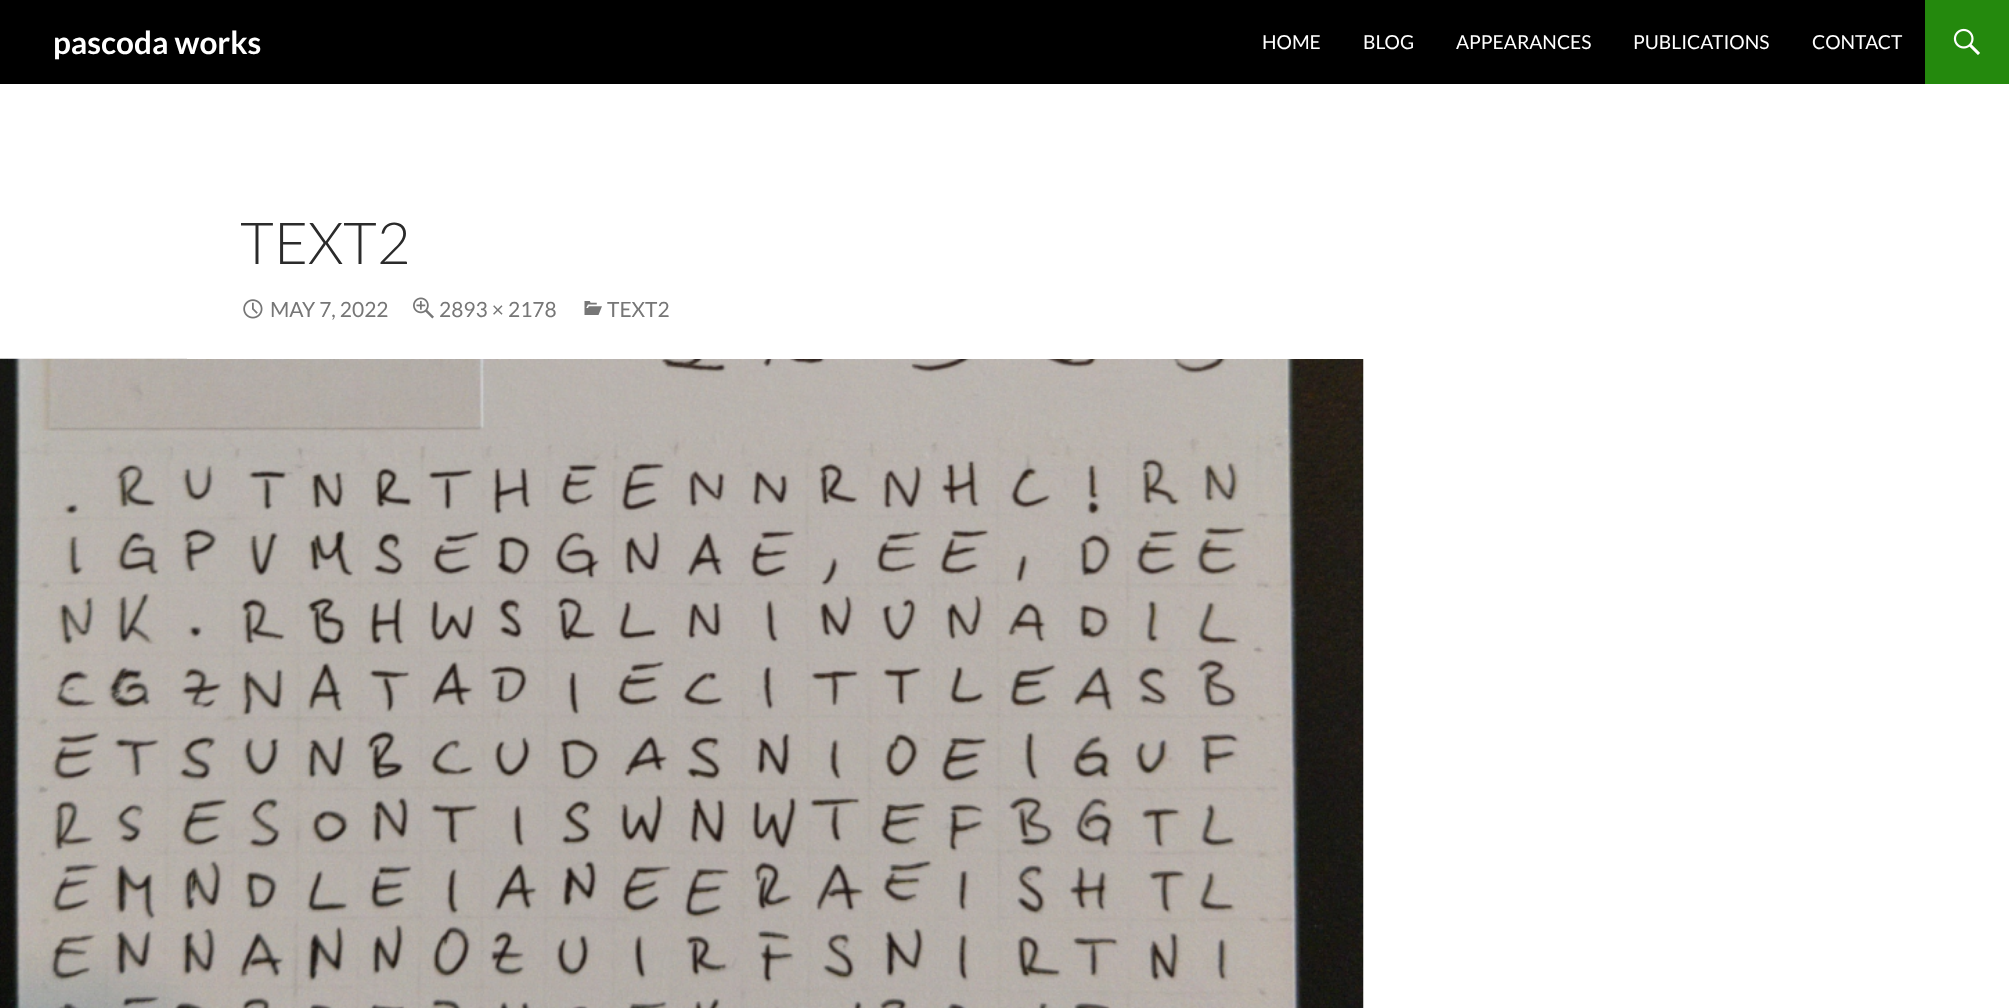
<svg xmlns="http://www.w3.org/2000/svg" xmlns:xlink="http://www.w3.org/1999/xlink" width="2009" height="1008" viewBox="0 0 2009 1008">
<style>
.cls-1{font:bold 31.5px Lato;fill:#ffffff}
.cls-2{font:19.25px Lato;fill:#ffffff}
.cls-3{font:300 58px Lato;fill:#2b2b2b}
.cls-4{font:21px Lato;fill:#767676}
</style>
<rect width="100%" height="100%" fill="#ffffff"/>
<rect fill="#000000" x="0" y="0" width="1925" height="84"/>
<rect fill="#24890d" x="1925" y="0" width="84" height="84"/>
<image xlink:href="image0.png" x="1953" y="28" width="27" height="27"/>
<image xlink:href="image4.png" x="0" y="358" width="1364" height="650"/>
<rect fill="#ffffff" x="187" y="358" width="1177" height="1"/>
<image xlink:href="image1.png" x="243" y="299" width="20" height="20"/>
<image xlink:href="image2.png" x="413" y="297" width="21" height="22"/>
<image xlink:href="image3.png" x="584" y="301" width="18" height="14"/>
<text class="cls-1" x="53" y="54">pascoda works</text>
<text class="cls-2" x="1262" y="49">HOME</text>
<text class="cls-2" x="1363" y="49">BLOG</text>
<text class="cls-2" x="1456" y="49">APPEARANCES</text>
<text class="cls-2" x="1633" y="49">PUBLICATIONS</text>
<text class="cls-2" x="1812" y="49">CONTACT</text>
<text class="cls-3" x="240" y="264">TEXT2</text>
<text class="cls-4" x="270" y="317">MAY 7, 2022</text>
<text class="cls-4" x="439" y="317">2893 × 2178</text>
<text class="cls-4" x="607" y="317">TEXT2</text>
</svg>
